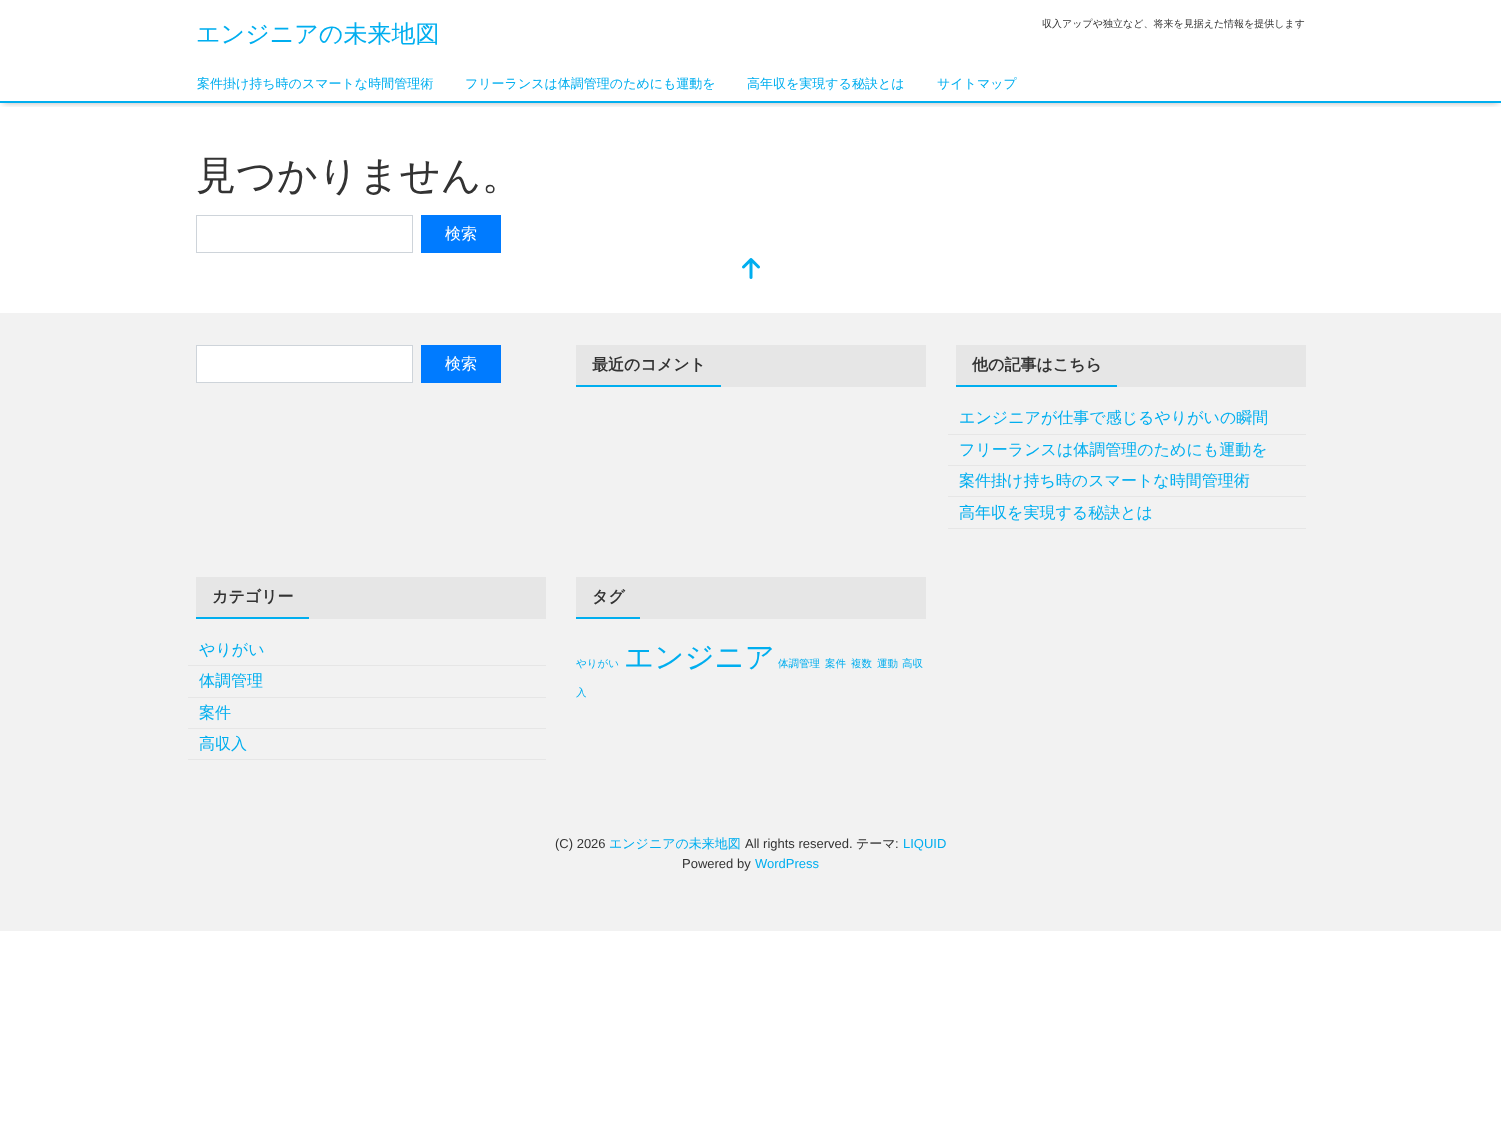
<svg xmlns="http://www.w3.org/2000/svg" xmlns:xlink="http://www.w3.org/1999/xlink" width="1501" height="1139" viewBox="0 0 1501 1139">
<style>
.cls-1{font:500 24px WenQuanYi Zen Hei;fill:#00aeef}
.cls-2{font:500 10px WenQuanYi Zen Hei;fill:#333333}
.cls-3{font:500 13px WenQuanYi Zen Hei;fill:#00aeef}
.cls-4{font:500 40px WenQuanYi Zen Hei;fill:#333333}
.cls-5{font:500 16px WenQuanYi Zen Hei;fill:#ffffff}
.cls-6{font:bold 16px WenQuanYi Zen Hei;fill:#333333}
.cls-7{font:500 16px WenQuanYi Zen Hei;fill:#00aeef}
.cls-8{font:500 10.5px WenQuanYi Zen Hei;fill:#00aeef}
.cls-9{font:500 29.5px WenQuanYi Zen Hei;fill:#00aeef}
.cls-10{font:13px Liberation Sans;fill:#333333}
.cls-11{font:500 13px WenQuanYi Zen Hei;fill:#333333}
.cls-12{font:13px Liberation Sans;fill:#00aeef}
</style>
<defs>
<clipPath id="clip1"><rect x="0" y="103" width="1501" height="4"/></clipPath>
</defs>
<rect width="100%" height="100%" fill="#ffffff"/>
<g clip-path="url(#clip1)">
<rect fill="#000000" fill-opacity="0.3" filter="blur(3px)" x="3" y="74" width="1495" height="29"/>
</g>
<rect fill="#00aeef" x="0" y="101" width="1501" height="2"/>
<rect fill="none" stroke="#ced4da" x="196.5" y="215.5" width="216" height="37"/>
<rect fill="#007bff" x="421" y="215" width="80" height="38"/>
<image xlink:href="image0.png" x="742" y="258" width="18" height="21"/>
<rect fill="#f2f2f2" x="0" y="313" width="1501" height="618"/>
<rect fill="#ffffff" stroke="#ced4da" x="196.5" y="345.5" width="216" height="37"/>
<rect fill="#007bff" x="421" y="345" width="80" height="38"/>
<rect fill="#e6e6e6" x="576" y="345" width="350" height="42"/>
<rect fill="#00aeef" x="576" y="385" width="145" height="2"/>
<rect fill="#e6e6e6" x="956" y="345" width="350" height="42"/>
<rect fill="#00aeef" x="956" y="385" width="161" height="2"/>
<rect fill="#e6e6e6" x="948" y="434" width="358" height="1"/>
<rect fill="#e6e6e6" x="948" y="465" width="358" height="1"/>
<rect fill="#e6e6e6" x="948" y="496" width="358" height="1"/>
<rect fill="#e6e6e6" x="948" y="528" width="358" height="1"/>
<rect fill="#e6e6e6" x="196" y="577" width="350" height="42"/>
<rect fill="#00aeef" x="196" y="617" width="113" height="2"/>
<rect fill="#e6e6e6" x="188" y="665" width="358" height="1"/>
<rect fill="#e6e6e6" x="188" y="697" width="358" height="1"/>
<rect fill="#e6e6e6" x="188" y="728" width="358" height="1"/>
<rect fill="#e6e6e6" x="188" y="759" width="358" height="1"/>
<rect fill="#e6e6e6" x="576" y="577" width="350" height="42"/>
<rect fill="#00aeef" x="576" y="617" width="64" height="2"/>
<text class="cls-1" x="196" y="42">エンジニアの未来地図</text>
<text class="cls-2" x="1042" y="27">収入アップや独立など、将来を見据えた情報を提供します</text>
<text class="cls-3" x="197" y="88">案件掛け持ち時のスマートな時間管理術</text>
<text class="cls-3" x="465" y="88">フリーランスは体調管理のためにも運動を</text>
<text class="cls-3" x="747" y="88">高年収を実現する秘訣とは</text>
<text class="cls-3" x="937" y="88">サイトマップ</text>
<text class="cls-4" x="196" y="189">見つかりません。</text>
<text class="cls-5" x="445" y="239">検索</text>
<text class="cls-5" x="445" y="369">検索</text>
<text class="cls-6" x="592" y="370">最近のコメント</text>
<text class="cls-6" x="972" y="370">他の記事はこちら</text>
<text class="cls-7" x="959" y="423">エンジニアが仕事で感じるやりがいの瞬間</text>
<text class="cls-7"><tspan x="959" y="455">フリーランスは体調管理のためにも運動を</tspan><tspan x="959" y="486">案件掛け持ち時のスマートな時間管理術</tspan></text>
<text class="cls-7" x="959" y="518">高年収を実現する秘訣とは</text>
<text class="cls-6" x="212" y="602">カテゴリー</text>
<text class="cls-7"><tspan x="199" y="655">やりがい</tspan><tspan x="199" y="686">体調管理</tspan></text>
<text class="cls-7"><tspan x="199" y="718">案件</tspan><tspan x="199" y="749">高収入</tspan></text>
<text class="cls-6" x="592" y="602">タグ</text>
<text class="cls-8" x="576" y="667">やりがい</text>
<text class="cls-9" x="624" y="667">エンジニア</text>
<text class="cls-8" x="778" y="667">体調管理</text>
<text class="cls-8" x="825" y="667">案件</text>
<text class="cls-8" x="851" y="667">複数</text>
<text class="cls-8" x="877" y="667">運動</text>
<text class="cls-8" x="902" y="667">高収</text>
<text class="cls-8" x="576" y="696">入</text>
<text class="cls-10" x="555" y="848">(C) 2026</text>
<text class="cls-3" x="609" y="848">エンジニアの未来地図</text>
<text class="cls-10" x="745" y="848">All rights reserved.</text>
<text class="cls-11" x="856" y="848">テーマ</text>
<text class="cls-10" x="895" y="848">:</text>
<text class="cls-12" x="903" y="848">LIQUID</text>
<text class="cls-10" x="682" y="868">Powered by</text>
<text class="cls-12" x="755" y="868">WordPress</text>
</svg>
